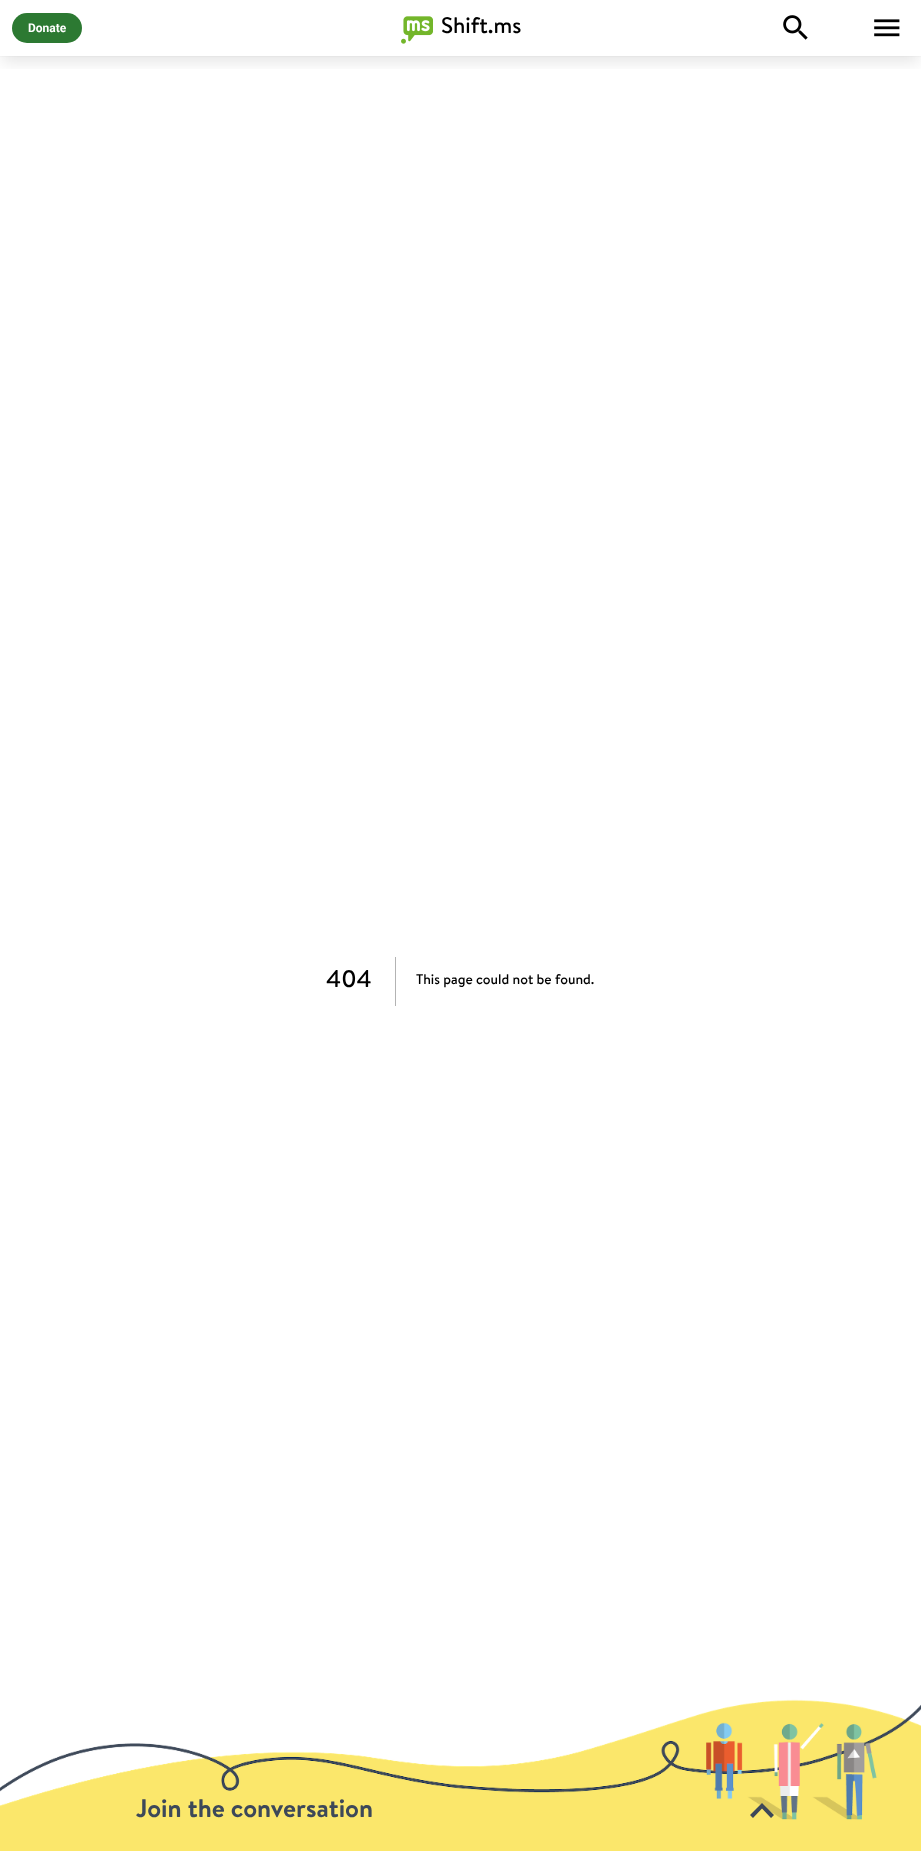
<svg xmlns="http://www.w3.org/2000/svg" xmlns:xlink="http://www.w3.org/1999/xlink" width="921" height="1851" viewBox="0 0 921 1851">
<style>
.cls-1{font:bold 12px Roboto;fill:#ffffff}
.cls-2{font:500 22.5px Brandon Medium;fill:#000000}
.cls-3{font:500 24px Brandon Medium;fill:#000000}
.cls-4{font:500 14px Brandon Medium;fill:#000000}
.cls-5{font:bold 25.5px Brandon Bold;fill:#3d4859}
</style>
<defs>
<clipPath id="clip1"><rect x="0" y="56" width="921" height="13"/></clipPath>
</defs>
<rect width="100%" height="100%" fill="#ffffff"/>
<rect fill="none" stroke="#fafafa" x="-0.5" y="-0.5" width="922" height="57"/>
<g clip-path="url(#clip1)">
<rect fill="#000000" fill-opacity="0.1" filter="blur(8px)" x="2" y="10" width="917" height="52"/>
</g>
<rect fill="#2c7932" x="12" y="13" width="70" height="30" rx="15"/>
<image xlink:href="image0.png" x="401" y="16" width="32" height="28"/>
<image xlink:href="image1.png" x="783" y="15" width="25" height="25"/>
<image xlink:href="image2.png" x="874" y="19" width="26" height="18"/>
<rect fill="#b3b3b3" x="395" y="957" width="1" height="49"/>
<image xlink:href="image3.png" x="0" y="1699" width="921" height="152"/>
<path fill="#3d4859" d="M753 1818L762 1808.5L771 1818L774 1815L762 1803L750 1815Z"/>
<text class="cls-1" x="28" y="32">Donate</text>
<text class="cls-2" x="441" y="33">Shift.ms</text>
<text class="cls-3" x="326" y="987">404</text>
<text class="cls-4" x="416" y="984">This page could not be found.</text>
<text class="cls-5" x="136" y="1817">Join the conversation</text>
</svg>
